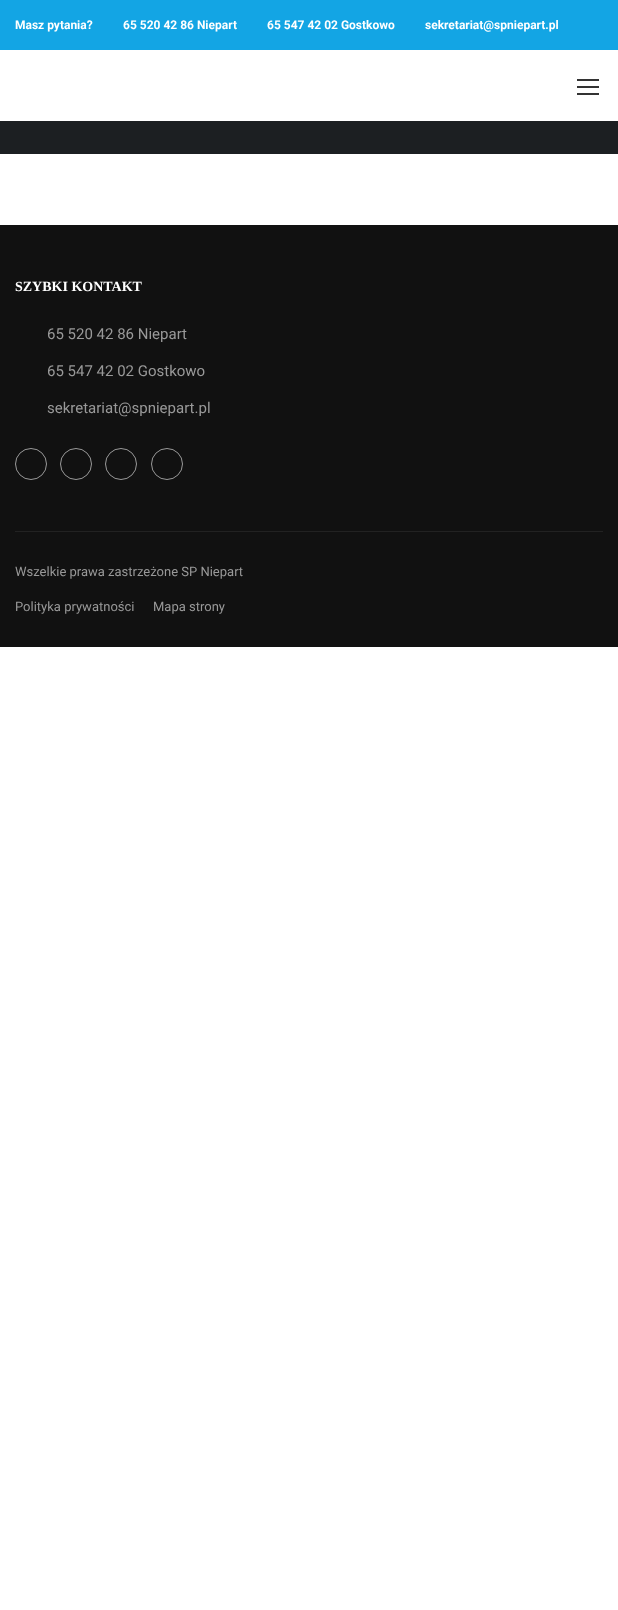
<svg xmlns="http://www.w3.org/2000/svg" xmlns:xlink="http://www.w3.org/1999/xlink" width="618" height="1610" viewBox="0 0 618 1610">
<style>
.cls-1{font:bold 12px Roboto;fill:#ffffff}
.cls-2{font:bold 14px Liberation Serif;fill:#ffffff}
.cls-3{font:15px Roboto;fill:#999999}
.cls-4{font:13px Roboto;fill:#999999}
</style>
<rect width="100%" height="100%" fill="#ffffff"/>
<rect fill="#13a5e4" x="0" y="0" width="618" height="50"/>
<rect fill="#333333" x="577" y="79" width="22" height="2"/>
<rect fill="#333333" x="577" y="86" width="22" height="2"/>
<rect fill="#333333" x="577" y="93" width="22" height="2"/>
<rect fill="#1c1f22" x="0" y="121" width="618" height="33"/>
<rect fill="#111111" x="0" y="225" width="618" height="422"/>
<circle fill="none" stroke="#999999" cx="31" cy="464" r="15.5"/>
<circle fill="none" stroke="#999999" cx="76" cy="464" r="15.5"/>
<circle fill="none" stroke="#999999" cx="121" cy="464" r="15.5"/>
<circle fill="none" stroke="#999999" cx="167" cy="464" r="15.5"/>
<rect fill="#222222" x="15" y="531" width="588" height="1"/>
<text class="cls-1" x="15" y="29">Masz pytania?</text>
<text class="cls-1" x="123" y="29">65 520 42 86 Niepart</text>
<text class="cls-1" x="267" y="29">65 547 42 02 Gostkowo</text>
<text class="cls-1" x="425" y="29">sekretariat@spniepart.pl</text>
<text class="cls-2" x="15" y="291">SZYBKI KONTAKT</text>
<text class="cls-3" x="47" y="339">65 520 42 86 Niepart</text>
<text class="cls-3" x="47" y="376">65 547 42 02 Gostkowo</text>
<text class="cls-3" x="47" y="413">sekretariat@spniepart.pl</text>
<text class="cls-4" x="15" y="576">Wszelkie prawa zastrzeżone SP Niepart</text>
<text class="cls-4" x="15" y="611">Polityka prywatności</text>
<text class="cls-4" x="153" y="611">Mapa strony</text>
</svg>
